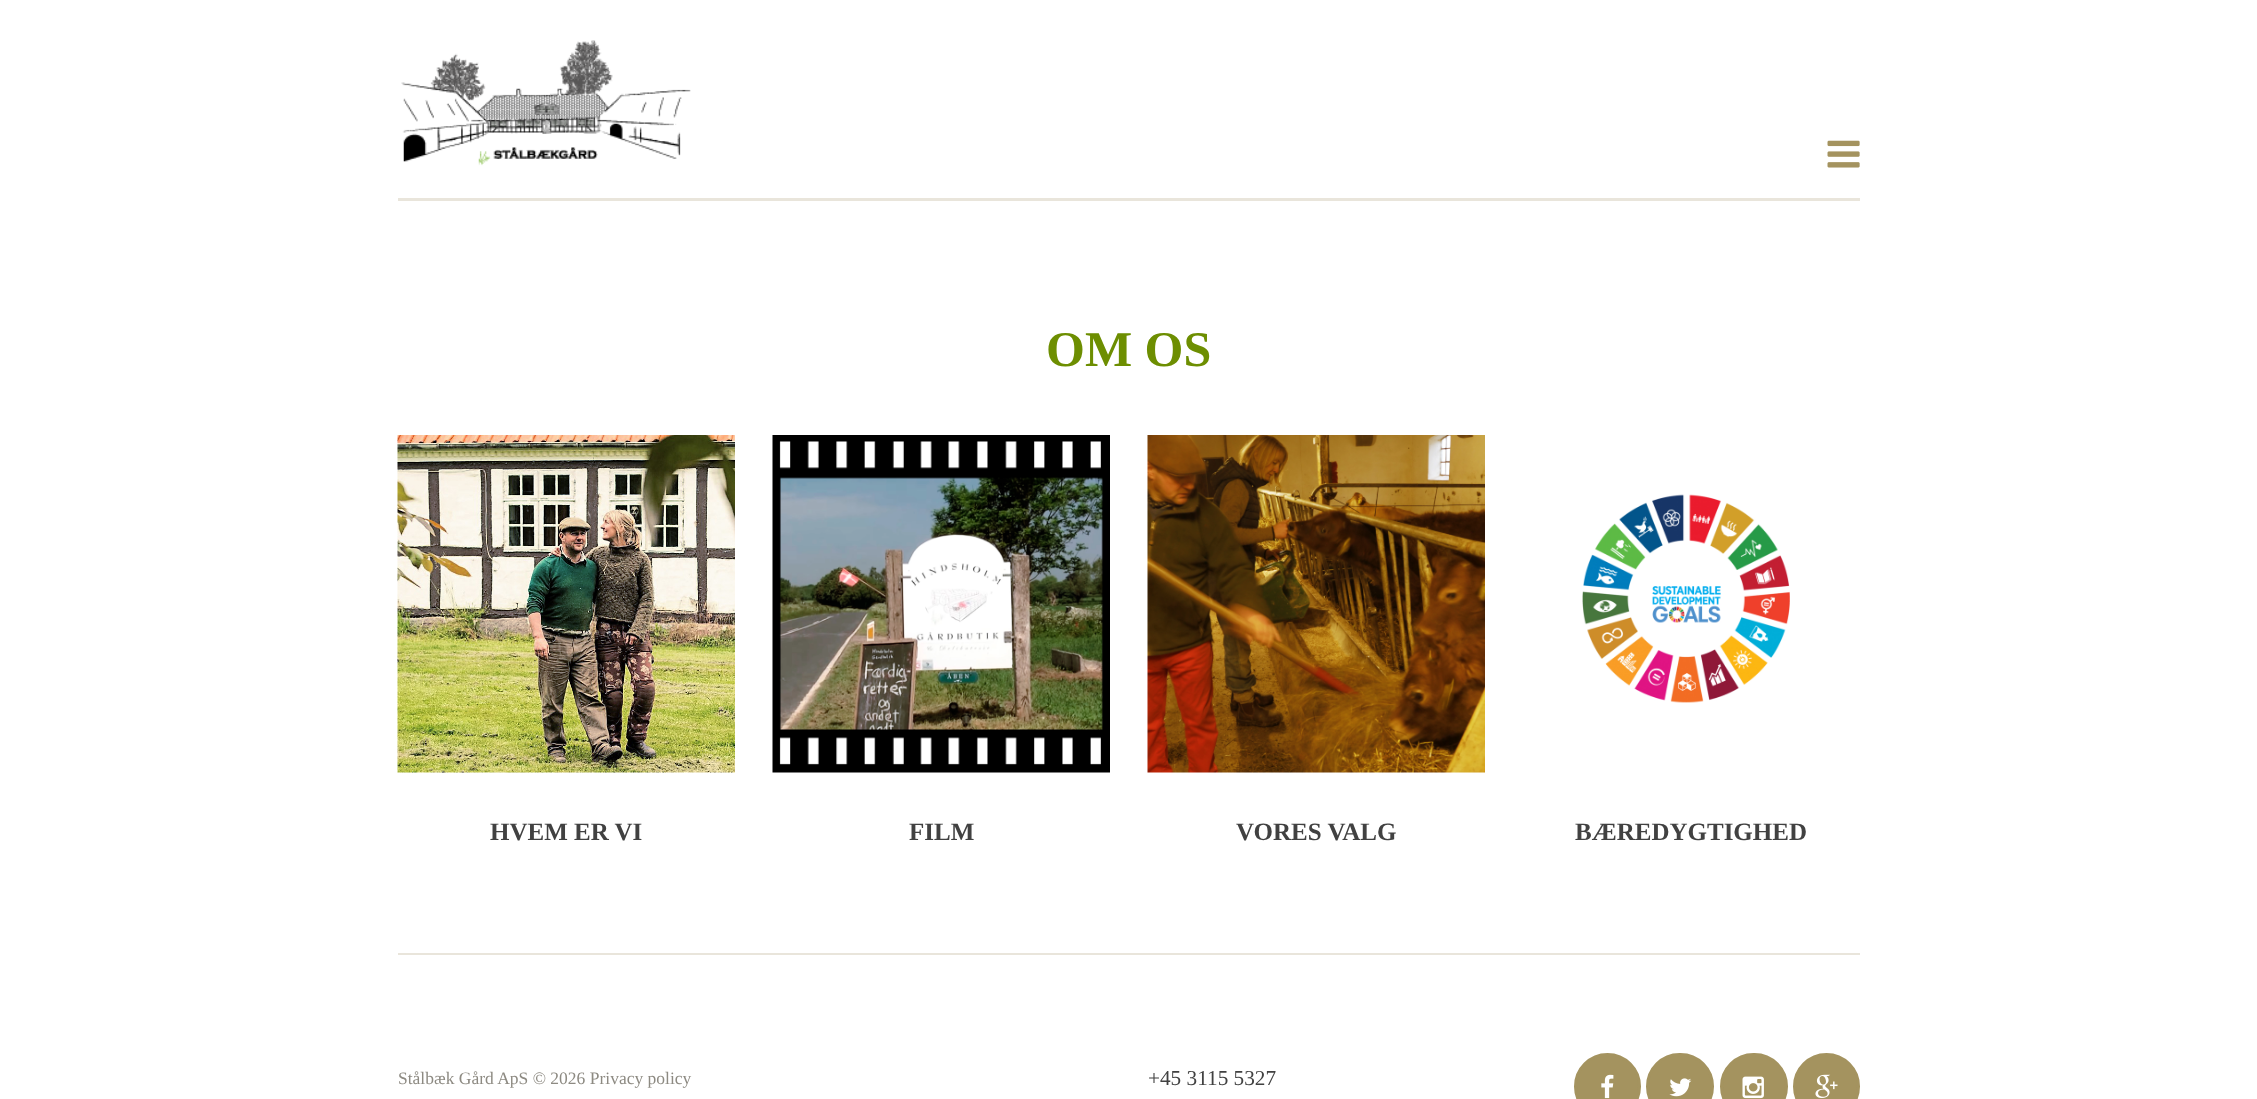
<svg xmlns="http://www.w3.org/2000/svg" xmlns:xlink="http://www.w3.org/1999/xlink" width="2257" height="1099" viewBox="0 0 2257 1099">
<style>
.cls-1{font:bold 50px Liberation Serif;fill:#6d8e01}
.cls-2{font:bold 25px Liberation Serif;fill:#414141}
.cls-3{font:17.5px Liberation Serif;fill:#8d8a82}
.cls-4{font:21.25px Liberation Serif;fill:#414141}
</style>
<rect width="100%" height="100%" fill="#ffffff"/>
<image xlink:href="image0.png" x="401" y="40" width="290" height="126"/>
<image xlink:href="image1.png" x="1827" y="140" width="33" height="28"/>
<rect fill="#e9e5db" x="398" y="198" width="1462" height="3"/>
<image xlink:href="image2.png" x="397" y="435" width="338" height="338"/>
<image xlink:href="image3.png" x="772" y="435" width="338" height="338"/>
<image xlink:href="image4.png" x="1147" y="435" width="338" height="338"/>
<image xlink:href="image5.png" x="1582" y="494" width="208" height="209"/>
<rect fill="#e9e5db" x="398" y="953" width="1462" height="2"/>
<circle fill="#a4935f" stroke="#a4935f" stroke-width="3" cx="1607.5" cy="1086.5" r="32"/>
<image xlink:href="image6.png" x="1601" y="1074" width="13" height="25"/>
<rect fill="#a4935f" stroke="#a4935f" stroke-width="3" x="1647.5" y="1054.5" width="65" height="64" rx="32"/>
<image xlink:href="image7.png" x="1669" y="1078" width="23" height="19"/>
<rect fill="#a4935f" stroke="#a4935f" stroke-width="3" x="1721.5" y="1054.5" width="65" height="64" rx="32"/>
<image xlink:href="image8.png" x="1742" y="1076" width="22" height="23"/>
<circle fill="#a4935f" stroke="#a4935f" stroke-width="3" cx="1826.5" cy="1086.5" r="32"/>
<image xlink:href="image9.png" x="1815" y="1074" width="23" height="24"/>
<text class="cls-1" x="1046" y="366">OM OS</text>
<text class="cls-2" x="490" y="840">HVEM ER VI</text>
<text class="cls-2" x="909" y="840">FILM</text>
<text class="cls-2" x="1236" y="840">VORES VALG</text>
<text class="cls-2" x="1575" y="840">BÆREDYGTIGHED</text>
<text class="cls-3" x="398" y="1084">Stålbæk Gård ApS © 2026 Privacy policy</text>
<text class="cls-4" x="1148" y="1085">+45 3115 5327</text>
</svg>
